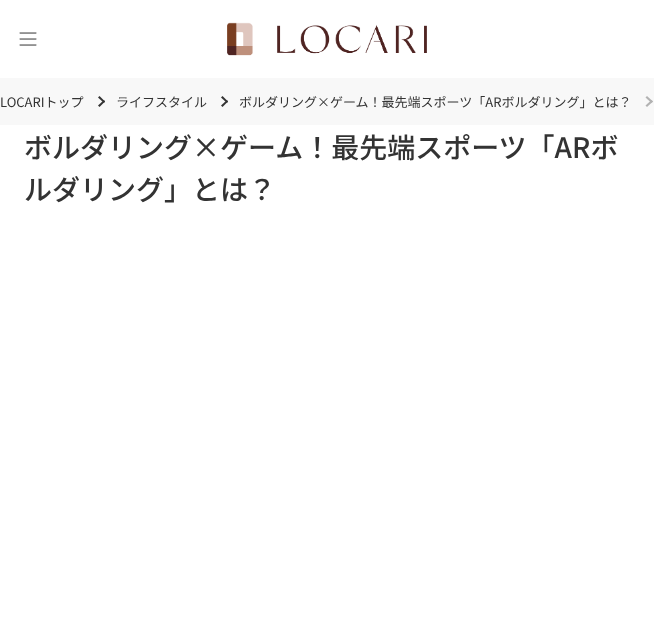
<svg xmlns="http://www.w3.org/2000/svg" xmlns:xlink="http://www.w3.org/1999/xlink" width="654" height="642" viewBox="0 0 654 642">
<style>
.cls-1{font:13px Noto Sans JP;fill:#333333}
.cls-2{font:500 28px Noto Sans JP;fill:#333333}
</style>
<rect width="100%" height="100%" fill="#f8f8f8"/>
<rect fill="#ffffff" x="0" y="0" width="654" height="78"/>
<image xlink:href="image0.png" x="19" y="32" width="18" height="14"/>
<image xlink:href="image1.png" x="227" y="22" width="200" height="34"/>
<path fill="#333333" d="M98 97.5L99.5 96L105 101.5L104 103Z"/>
<path fill="#333333" d="M98 105.5L104 100L105 101.5L99.5 107Z"/>
<path fill="#333333" d="M221 97.5L222.5 96L228 101.5L227 103Z"/>
<path fill="#333333" d="M221 105.5L227 100L228 101.5L222.5 107Z"/>
<path fill="#b2b2b2" d="M645.5 97.5L647 96L653 101.5L651.5 103Z"/>
<path fill="#b2b2b2" d="M645.5 105.5L651.5 100L653 101.5L647 107Z"/>
<rect fill="#ffffff" x="0" y="125" width="654" height="517"/>
<text class="cls-1" x="0" y="107">LOCARIトップ</text>
<text class="cls-1" x="116" y="107">ライフスタイル</text>
<text class="cls-1" x="239" y="107">ボルダリング×ゲーム！最先端スポーツ「ARボルダリング」とは？</text>
<text class="cls-2"><tspan x="24" y="158">ボルダリング×ゲーム！最先端スポーツ「ARボ</tspan><tspan x="24" y="200">ルダリング」とは？</tspan></text>
</svg>
